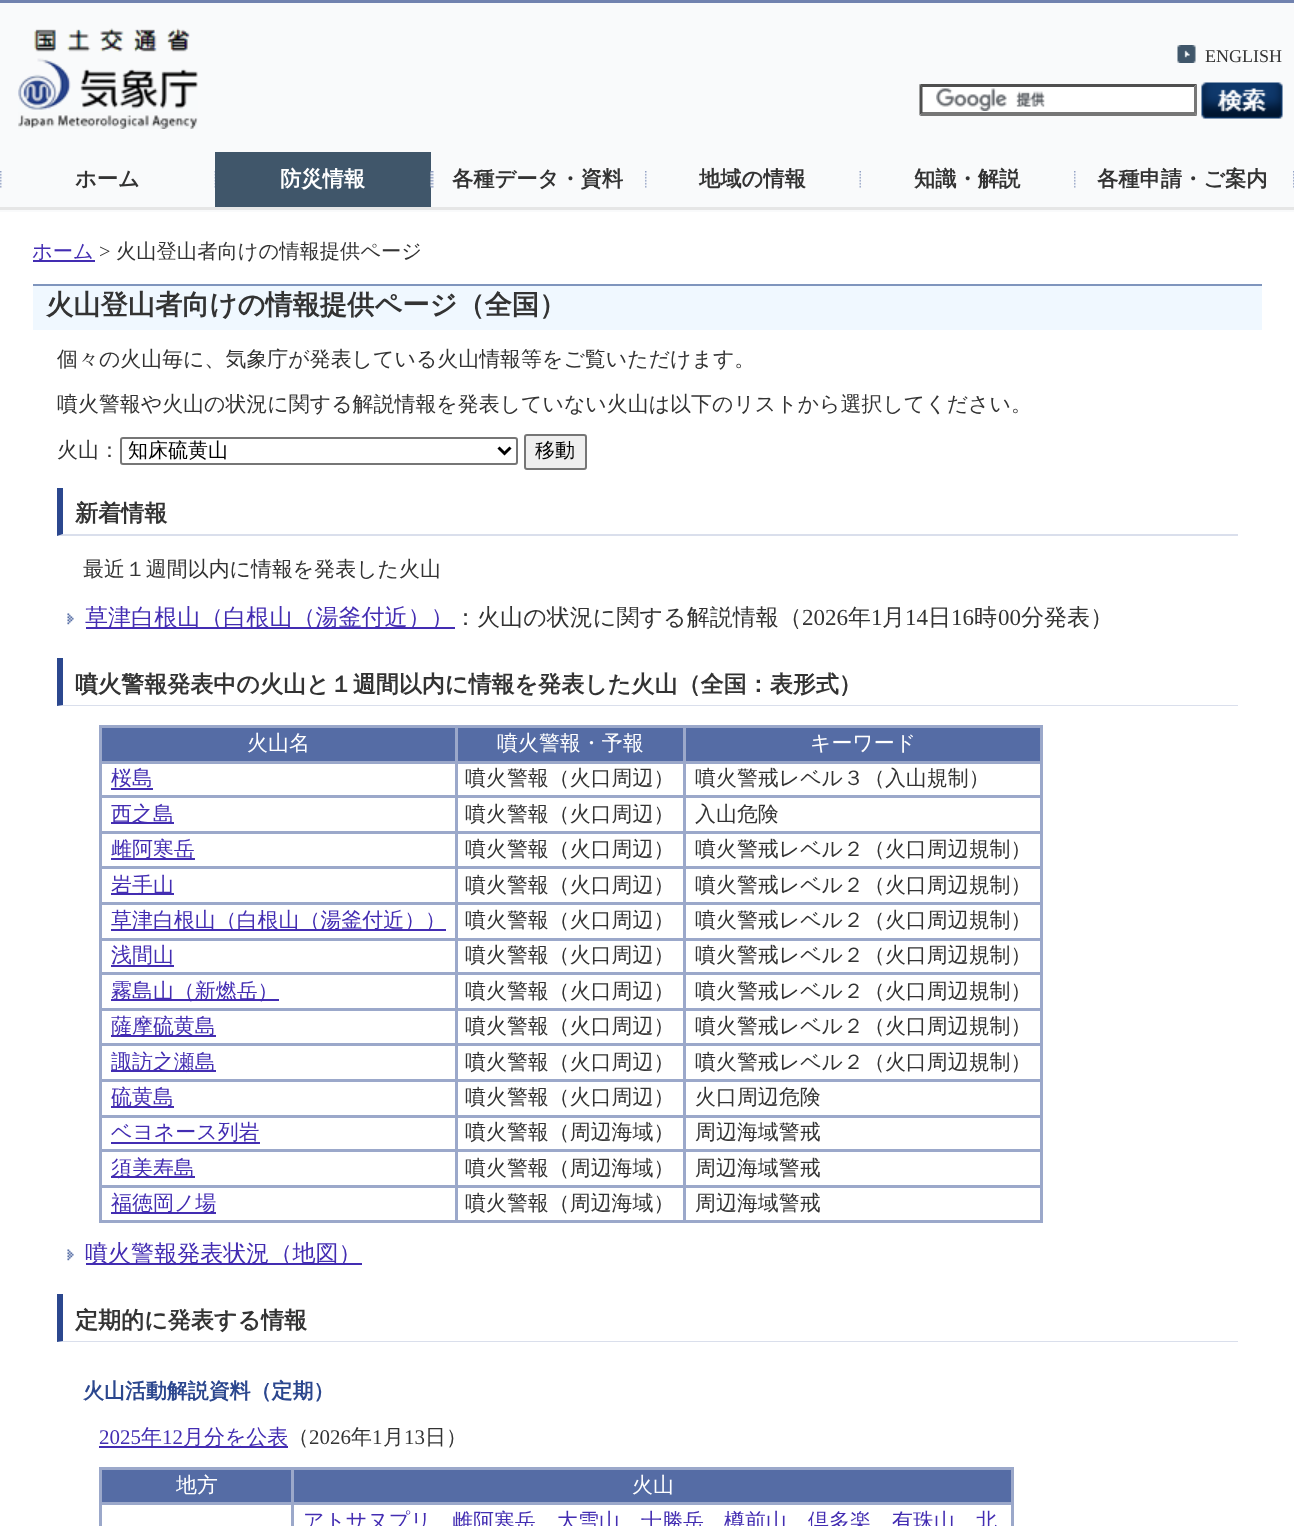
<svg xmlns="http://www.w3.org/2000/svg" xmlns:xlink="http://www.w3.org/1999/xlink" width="1294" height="1526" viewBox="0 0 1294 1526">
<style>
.cls-1{font:18px Liberation Serif;fill:#333333}
.cls-2{font:bold 21.25px WenQuanYi Zen Hei;fill:#333333}
.cls-3{font:bold 21.25px WenQuanYi Zen Hei;fill:#ffffff}
.cls-4{font:500 20.3px WenQuanYi Zen Hei;fill:#432db2}
.cls-5{font:20.3px Liberation Serif;fill:#333333}
.cls-6{font:500 20.3px WenQuanYi Zen Hei;fill:#333333}
.cls-7{font:bold 27.25px WenQuanYi Zen Hei;fill:#333333}
.cls-8{font:500 20.95px WenQuanYi Zen Hei;fill:#333333}
.cls-9{font:500 20px WenQuanYi Zen Hei;fill:#000000}
.cls-10{font:bold 23.05px WenQuanYi Zen Hei;fill:#333333}
.cls-11{font:500 23.05px WenQuanYi Zen Hei;fill:#432db2}
.cls-12{font:500 23.05px WenQuanYi Zen Hei;fill:#333333}
.cls-13{font:23.05px Liberation Serif;fill:#333333}
.cls-14{font:500 20.95px WenQuanYi Zen Hei;fill:#ffffff}
.cls-15{font:500 20.95px WenQuanYi Zen Hei;fill:#432db2}
.cls-16{font:bold 20.95px WenQuanYi Zen Hei;fill:#2b478e}
.cls-17{font:20.95px Liberation Serif;fill:#432db2}
.cls-18{font:20.95px Liberation Serif;fill:#333333}
</style>
<rect width="100%" height="100%" fill="#f9fafb"/>
<rect fill="#e6e6e6" x="0" y="207" width="1294" height="3"/>
<rect fill="#7182af" x="0" y="0" width="1294" height="3"/>
<image xlink:href="image0.png" x="18" y="28" width="180" height="101"/>
<image xlink:href="image1.png" x="1177" y="45" width="19" height="18"/>
<rect fill="#ffffff" x="920" y="84" width="277" height="32"/>
<image xlink:href="image2.png" x="936" y="88" width="109" height="23"/>
<path fill="#4f4f4f" d="M920 84H1197L1194 87H922Z"/>
<path fill="#767676" d="M1197 84V115.5L1194 112.5V87Z"/>
<path fill="#767676" d="M1197 116H920L922 112H1194Z"/>
<path fill="#4f4f4f" d="M919.5 115.5V84L922.5 87V112.5Z"/>
<image xlink:href="image3.png" x="1201" y="82" width="82" height="37"/>
<image xlink:href="image4.png" x="1293" y="171" width="1" height="17"/>
<image xlink:href="image5.png" x="0" y="171" width="2" height="17"/>
<image xlink:href="image6.png" x="214" y="171" width="1" height="17"/>
<rect fill="#40566a" x="215" y="152" width="216" height="55"/>
<image xlink:href="image7.png" x="430" y="171" width="4" height="17"/>
<image xlink:href="image5.png" x="645" y="171" width="2" height="17"/>
<image xlink:href="image8.png" x="859" y="171" width="2" height="17"/>
<image xlink:href="image5.png" x="1074" y="171" width="2" height="17"/>
<rect fill="#ffffff" x="0" y="212" width="1294" height="1314"/>
<rect fill="#432db2" x="33" y="260" width="62" height="2"/>
<rect fill="#f0f8ff" x="33" y="286" width="1229" height="44"/>
<rect fill="#7f95bd" x="33" y="284" width="1229" height="2"/>
<rect fill="none" stroke="#767676" stroke-width="2" x="121" y="438" width="396" height="26" rx="2"/>
<path fill="none" stroke="#000000" stroke-width="3" d="M498.5 447.5L504.5 453.5L510.5 447.5"/>
<rect fill="#efefef" stroke="#767676" stroke-width="2" x="525" y="435" width="61" height="34" rx="2"/>
<path fill="#dadfec" d="M1238 536H57L63 534H1238Z"/>
<path fill="#2b478e" d="M57 536V488H63V534Z"/>
<image xlink:href="image9.png" x="67" y="613" width="7" height="12"/>
<rect fill="#432db2" x="86" y="627" width="369" height="2"/>
<path fill="#dadfec" d="M1238 706H57L63 705H1238Z"/>
<path fill="#2b478e" d="M57 706V658H63V705Z"/>
<rect fill="#556ca5" x="102" y="728" width="353" height="33"/>
<rect fill="#9ba8ca" x="683" y="725" width="360" height="3"/>
<rect fill="#9ba8ca" x="683" y="761" width="360" height="3"/>
<rect fill="#9ba8ca" x="683" y="795" width="360" height="3"/>
<rect fill="#9ba8ca" x="683" y="831" width="360" height="3"/>
<rect fill="#9ba8ca" x="683" y="866" width="360" height="3"/>
<rect fill="#9ba8ca" x="683" y="902" width="360" height="3"/>
<rect fill="#9ba8ca" x="683" y="938" width="360" height="3"/>
<rect fill="#9ba8ca" x="683" y="972" width="360" height="3"/>
<rect fill="#9ba8ca" x="683" y="1008" width="360" height="3"/>
<rect fill="#9ba8ca" x="683" y="1043" width="360" height="3"/>
<rect fill="#9ba8ca" x="683" y="1079" width="360" height="3"/>
<rect fill="#9ba8ca" x="683" y="1115" width="360" height="3"/>
<rect fill="#9ba8ca" x="683" y="1149" width="360" height="3"/>
<rect fill="#9ba8ca" x="683" y="1185" width="360" height="3"/>
<rect fill="#9ba8ca" x="1040" y="1185" width="3" height="38"/>
<rect fill="#9ba8ca" x="683" y="1220" width="360" height="3"/>
<rect fill="#9ba8ca" x="683" y="1185" width="3" height="38"/>
<rect fill="#9ba8ca" x="455" y="1185" width="231" height="3"/>
<rect fill="#9ba8ca" x="683" y="1149" width="3" height="39"/>
<rect fill="#9ba8ca" x="455" y="1149" width="231" height="3"/>
<rect fill="#9ba8ca" x="683" y="1115" width="3" height="37"/>
<rect fill="#9ba8ca" x="455" y="1115" width="231" height="3"/>
<rect fill="#9ba8ca" x="683" y="1079" width="3" height="39"/>
<rect fill="#9ba8ca" x="455" y="1079" width="231" height="3"/>
<rect fill="#9ba8ca" x="683" y="1043" width="3" height="39"/>
<rect fill="#9ba8ca" x="455" y="1043" width="231" height="3"/>
<rect fill="#9ba8ca" x="683" y="1008" width="3" height="38"/>
<rect fill="#9ba8ca" x="455" y="1008" width="231" height="3"/>
<rect fill="#9ba8ca" x="683" y="972" width="3" height="39"/>
<rect fill="#9ba8ca" x="455" y="972" width="231" height="3"/>
<rect fill="#9ba8ca" x="683" y="938" width="3" height="37"/>
<rect fill="#9ba8ca" x="455" y="938" width="231" height="3"/>
<rect fill="#9ba8ca" x="683" y="902" width="3" height="39"/>
<rect fill="#9ba8ca" x="455" y="902" width="231" height="3"/>
<rect fill="#9ba8ca" x="683" y="866" width="3" height="39"/>
<rect fill="#9ba8ca" x="455" y="866" width="231" height="3"/>
<rect fill="#9ba8ca" x="683" y="831" width="3" height="38"/>
<rect fill="#9ba8ca" x="455" y="831" width="231" height="3"/>
<rect fill="#9ba8ca" x="683" y="795" width="3" height="39"/>
<rect fill="#9ba8ca" x="455" y="795" width="231" height="3"/>
<rect fill="#9ba8ca" x="683" y="761" width="3" height="37"/>
<rect fill="#9ba8ca" x="455" y="761" width="231" height="3"/>
<rect fill="#9ba8ca" x="683" y="725" width="3" height="39"/>
<rect fill="#9ba8ca" x="455" y="725" width="231" height="3"/>
<rect fill="#9ba8ca" x="455" y="1220" width="231" height="3"/>
<rect fill="#9ba8ca" x="455" y="1185" width="3" height="38"/>
<rect fill="#9ba8ca" x="99" y="1185" width="359" height="3"/>
<rect fill="#9ba8ca" x="455" y="1149" width="3" height="39"/>
<rect fill="#9ba8ca" x="99" y="1149" width="359" height="3"/>
<rect fill="#9ba8ca" x="455" y="1115" width="3" height="37"/>
<rect fill="#9ba8ca" x="99" y="1115" width="359" height="3"/>
<rect fill="#9ba8ca" x="455" y="1079" width="3" height="39"/>
<rect fill="#9ba8ca" x="99" y="1079" width="359" height="3"/>
<rect fill="#9ba8ca" x="455" y="1043" width="3" height="39"/>
<rect fill="#9ba8ca" x="99" y="1043" width="359" height="3"/>
<rect fill="#9ba8ca" x="455" y="1008" width="3" height="38"/>
<rect fill="#9ba8ca" x="99" y="1008" width="359" height="3"/>
<rect fill="#9ba8ca" x="455" y="972" width="3" height="39"/>
<rect fill="#9ba8ca" x="99" y="972" width="359" height="3"/>
<rect fill="#9ba8ca" x="455" y="938" width="3" height="37"/>
<rect fill="#9ba8ca" x="99" y="938" width="359" height="3"/>
<rect fill="#9ba8ca" x="455" y="902" width="3" height="39"/>
<rect fill="#9ba8ca" x="99" y="902" width="359" height="3"/>
<rect fill="#9ba8ca" x="455" y="866" width="3" height="39"/>
<rect fill="#9ba8ca" x="99" y="866" width="359" height="3"/>
<rect fill="#9ba8ca" x="455" y="831" width="3" height="38"/>
<rect fill="#9ba8ca" x="99" y="831" width="359" height="3"/>
<rect fill="#9ba8ca" x="455" y="795" width="3" height="39"/>
<rect fill="#9ba8ca" x="99" y="795" width="359" height="3"/>
<rect fill="#9ba8ca" x="455" y="761" width="3" height="37"/>
<rect fill="#9ba8ca" x="99" y="761" width="359" height="3"/>
<rect fill="#9ba8ca" x="455" y="725" width="3" height="39"/>
<rect fill="#9ba8ca" x="99" y="725" width="359" height="3"/>
<rect fill="#9ba8ca" x="99" y="1220" width="359" height="3"/>
<rect fill="#9ba8ca" x="99" y="1185" width="3" height="38"/>
<rect fill="#9ba8ca" x="99" y="1149" width="3" height="39"/>
<rect fill="#9ba8ca" x="99" y="1115" width="3" height="37"/>
<rect fill="#9ba8ca" x="99" y="1079" width="3" height="39"/>
<rect fill="#9ba8ca" x="99" y="1043" width="3" height="39"/>
<rect fill="#9ba8ca" x="99" y="1008" width="3" height="38"/>
<rect fill="#9ba8ca" x="99" y="972" width="3" height="39"/>
<rect fill="#9ba8ca" x="99" y="938" width="3" height="37"/>
<rect fill="#9ba8ca" x="99" y="902" width="3" height="39"/>
<rect fill="#9ba8ca" x="99" y="866" width="3" height="39"/>
<rect fill="#9ba8ca" x="99" y="831" width="3" height="38"/>
<rect fill="#9ba8ca" x="99" y="795" width="3" height="39"/>
<rect fill="#9ba8ca" x="99" y="761" width="3" height="37"/>
<rect fill="#9ba8ca" x="99" y="725" width="3" height="39"/>
<rect fill="#556ca5" x="458" y="728" width="225" height="33"/>
<rect fill="#556ca5" x="686" y="728" width="354" height="33"/>
<rect fill="#9ba8ca" x="1040" y="1149" width="3" height="39"/>
<rect fill="#9ba8ca" x="1040" y="1115" width="3" height="37"/>
<rect fill="#9ba8ca" x="1040" y="1079" width="3" height="39"/>
<rect fill="#9ba8ca" x="1040" y="1043" width="3" height="39"/>
<rect fill="#9ba8ca" x="1040" y="1008" width="3" height="38"/>
<rect fill="#9ba8ca" x="1040" y="972" width="3" height="39"/>
<rect fill="#9ba8ca" x="1040" y="938" width="3" height="37"/>
<rect fill="#9ba8ca" x="1040" y="902" width="3" height="39"/>
<rect fill="#9ba8ca" x="1040" y="866" width="3" height="39"/>
<rect fill="#9ba8ca" x="1040" y="831" width="3" height="38"/>
<rect fill="#9ba8ca" x="1040" y="795" width="3" height="39"/>
<rect fill="#9ba8ca" x="1040" y="761" width="3" height="37"/>
<rect fill="#9ba8ca" x="1040" y="725" width="3" height="39"/>
<rect fill="#432db2" x="111" y="788" width="42" height="2"/>
<rect fill="#432db2" x="111" y="822" width="63" height="2"/>
<rect fill="#432db2" x="111" y="858" width="84" height="2"/>
<rect fill="#432db2" x="111" y="893" width="63" height="2"/>
<rect fill="#432db2" x="111" y="929" width="335" height="2"/>
<rect fill="#432db2" x="111" y="965" width="63" height="2"/>
<rect fill="#432db2" x="111" y="999" width="168" height="2"/>
<rect fill="#432db2" x="111" y="1035" width="105" height="2"/>
<rect fill="#432db2" x="111" y="1070" width="105" height="2"/>
<rect fill="#432db2" x="111" y="1106" width="63" height="2"/>
<rect fill="#432db2" x="111" y="1142" width="149" height="2"/>
<rect fill="#432db2" x="111" y="1176" width="84" height="2"/>
<rect fill="#432db2" x="111" y="1212" width="105" height="2"/>
<image xlink:href="image9.png" x="67" y="1249" width="7" height="12"/>
<rect fill="#432db2" x="86" y="1263" width="276" height="2"/>
<path fill="#dadfec" d="M1238 1342H57L63 1341H1238Z"/>
<path fill="#2b478e" d="M57 1342V1294H63V1341Z"/>
<rect fill="#432db2" x="99" y="1446" width="189" height="2"/>
<rect fill="#556ca5" x="102" y="1470" width="189" height="32"/>
<rect fill="#9ba8ca" x="291" y="1467" width="723" height="3"/>
<rect fill="#9ba8ca" x="291" y="1502" width="723" height="3"/>
<rect fill="#9ba8ca" x="291" y="1502" width="3" height="24"/>
<rect fill="#9ba8ca" x="99" y="1502" width="195" height="3"/>
<rect fill="#9ba8ca" x="291" y="1467" width="3" height="38"/>
<rect fill="#9ba8ca" x="99" y="1467" width="195" height="3"/>
<rect fill="#9ba8ca" x="99" y="1502" width="3" height="24"/>
<rect fill="#9ba8ca" x="99" y="1467" width="3" height="38"/>
<rect fill="#556ca5" x="294" y="1470" width="717" height="32"/>
<rect fill="#9ba8ca" x="1011" y="1502" width="3" height="24"/>
<rect fill="#9ba8ca" x="1011" y="1467" width="3" height="38"/>
<text class="cls-1" x="1205" y="62">ENGLISH</text>
<text class="cls-2" x="75" y="186">ホーム</text>
<text class="cls-3" x="280" y="186">防災情報</text>
<text class="cls-2" x="452" y="186">各種データ・資料</text>
<text class="cls-2" x="699" y="186">地域の情報</text>
<text class="cls-2" x="914" y="186">知識・解説</text>
<text class="cls-2" x="1097" y="186">各種申請・ご案内</text>
<text class="cls-4" x="32" y="258">ホーム</text>
<text class="cls-5" x="99" y="258">&gt;</text>
<text class="cls-6" x="116" y="258">火山登山者向けの情報提供ページ</text>
<text class="cls-7" x="46" y="314">火山登山者向けの情報提供ページ（全国）</text>
<text class="cls-8" x="57" y="366">個々の火山毎に、気象庁が発表している火山情報等をご覧いただけます。</text>
<text class="cls-8" x="57" y="411">噴火警報や火山の状況に関する解説情報を発表していない火山は以下のリストから選択してください。</text>
<text class="cls-8" x="57" y="457">火山：</text>
<text class="cls-9" x="128" y="457">知床硫黄山</text>
<text class="cls-9" x="535" y="457">移動</text>
<text class="cls-10" x="75" y="521">新着情報</text>
<text class="cls-8" x="83" y="576">最近１週間以内に情報を発表した火山</text>
<text class="cls-11" x="85" y="625">草津白根山（白根山（湯釜付近））</text>
<text class="cls-12" x="454" y="625">：火山の状況に関する解説情報（</text>
<text class="cls-13" x="802" y="625">2026</text>
<text class="cls-12" x="848" y="625">年</text>
<text class="cls-13" x="871" y="625">1</text>
<text class="cls-12" x="882" y="625">月</text>
<text class="cls-13" x="905" y="625">14</text>
<text class="cls-12" x="928" y="625">日</text>
<text class="cls-13" x="951" y="625">16</text>
<text class="cls-12" x="974" y="625">時</text>
<text class="cls-13" x="998" y="625">00</text>
<text class="cls-12" x="1021" y="625">分発表）</text>
<text class="cls-10" x="75" y="692">噴火警報発表中の火山と１週間以内に情報を発表した火山（全国：表形式）</text>
<text class="cls-14" x="247" y="750">火山名</text>
<text class="cls-14" x="497" y="750">噴火警報・予報</text>
<text class="cls-14" x="810" y="750">キーワード</text>
<text class="cls-15" x="111" y="785">桜島</text>
<text class="cls-8" x="465" y="785">噴火警報（火口周辺）</text>
<text class="cls-8" x="695" y="785">噴火警戒レベル３（入山規制）</text>
<text class="cls-15" x="111" y="821">西之島</text>
<text class="cls-8" x="465" y="821">噴火警報（火口周辺）</text>
<text class="cls-8" x="695" y="821">入山危険</text>
<text class="cls-15" x="111" y="856">雌阿寒岳</text>
<text class="cls-8" x="465" y="856">噴火警報（火口周辺）</text>
<text class="cls-8" x="695" y="856">噴火警戒レベル２（火口周辺規制）</text>
<text class="cls-15" x="111" y="892">岩手山</text>
<text class="cls-8" x="465" y="892">噴火警報（火口周辺）</text>
<text class="cls-8" x="695" y="892">噴火警戒レベル２（火口周辺規制）</text>
<text class="cls-15" x="111" y="927">草津白根山（白根山（湯釜付近））</text>
<text class="cls-8" x="465" y="927">噴火警報（火口周辺）</text>
<text class="cls-8" x="695" y="927">噴火警戒レベル２（火口周辺規制）</text>
<text class="cls-15" x="111" y="962">浅間山</text>
<text class="cls-8" x="465" y="962">噴火警報（火口周辺）</text>
<text class="cls-8" x="695" y="962">噴火警戒レベル２（火口周辺規制）</text>
<text class="cls-15" x="111" y="998">霧島山（新燃岳）</text>
<text class="cls-8" x="465" y="998">噴火警報（火口周辺）</text>
<text class="cls-8" x="695" y="998">噴火警戒レベル２（火口周辺規制）</text>
<text class="cls-15" x="111" y="1033">薩摩硫黄島</text>
<text class="cls-8" x="465" y="1033">噴火警報（火口周辺）</text>
<text class="cls-8" x="695" y="1033">噴火警戒レベル２（火口周辺規制）</text>
<text class="cls-15" x="111" y="1069">諏訪之瀬島</text>
<text class="cls-8" x="465" y="1069">噴火警報（火口周辺）</text>
<text class="cls-8" x="695" y="1069">噴火警戒レベル２（火口周辺規制）</text>
<text class="cls-15" x="111" y="1104">硫黄島</text>
<text class="cls-8" x="465" y="1104">噴火警報（火口周辺）</text>
<text class="cls-8" x="695" y="1104">火口周辺危険</text>
<text class="cls-15" x="111" y="1139">ベヨネース列岩</text>
<text class="cls-8" x="465" y="1139">噴火警報（周辺海域）</text>
<text class="cls-8" x="695" y="1139">周辺海域警戒</text>
<text class="cls-15" x="111" y="1175">須美寿島</text>
<text class="cls-8" x="465" y="1175">噴火警報（周辺海域）</text>
<text class="cls-8" x="695" y="1175">周辺海域警戒</text>
<text class="cls-15" x="111" y="1210">福徳岡ノ場</text>
<text class="cls-8" x="465" y="1210">噴火警報（周辺海域）</text>
<text class="cls-8" x="695" y="1210">周辺海域警戒</text>
<text class="cls-11" x="85" y="1261">噴火警報発表状況（地図）</text>
<text class="cls-10" x="75" y="1328">定期的に発表する情報</text>
<text class="cls-16" x="83" y="1398">火山活動解説資料（定期）</text>
<text class="cls-17" x="99" y="1444">2025</text>
<text class="cls-15" x="141" y="1444">年</text>
<text class="cls-17" x="162" y="1444">12</text>
<text class="cls-15" x="183" y="1444">月分を公表</text>
<text class="cls-8" x="288" y="1444">（</text>
<text class="cls-18" x="309" y="1444">2026</text>
<text class="cls-8" x="351" y="1444">年</text>
<text class="cls-18" x="372" y="1444">1</text>
<text class="cls-8" x="383" y="1444">月</text>
<text class="cls-18" x="404" y="1444">13</text>
<text class="cls-8" x="425" y="1444">日）</text>
<text class="cls-14" x="176" y="1492">地方</text>
<text class="cls-14" x="632" y="1492">火山</text>
<text class="cls-15" x="303" y="1528">アトサヌプリ</text>
<text class="cls-15" x="452" y="1528">雌阿寒岳</text>
<text class="cls-15" x="557" y="1528">大雪山</text>
<text class="cls-15" x="641" y="1528">十勝岳</text>
<text class="cls-15" x="724" y="1528">樽前山</text>
<text class="cls-15" x="808" y="1528">倶多楽</text>
<text class="cls-15" x="892" y="1528">有珠山</text>
<text class="cls-15" x="976" y="1528">北</text>
</svg>
